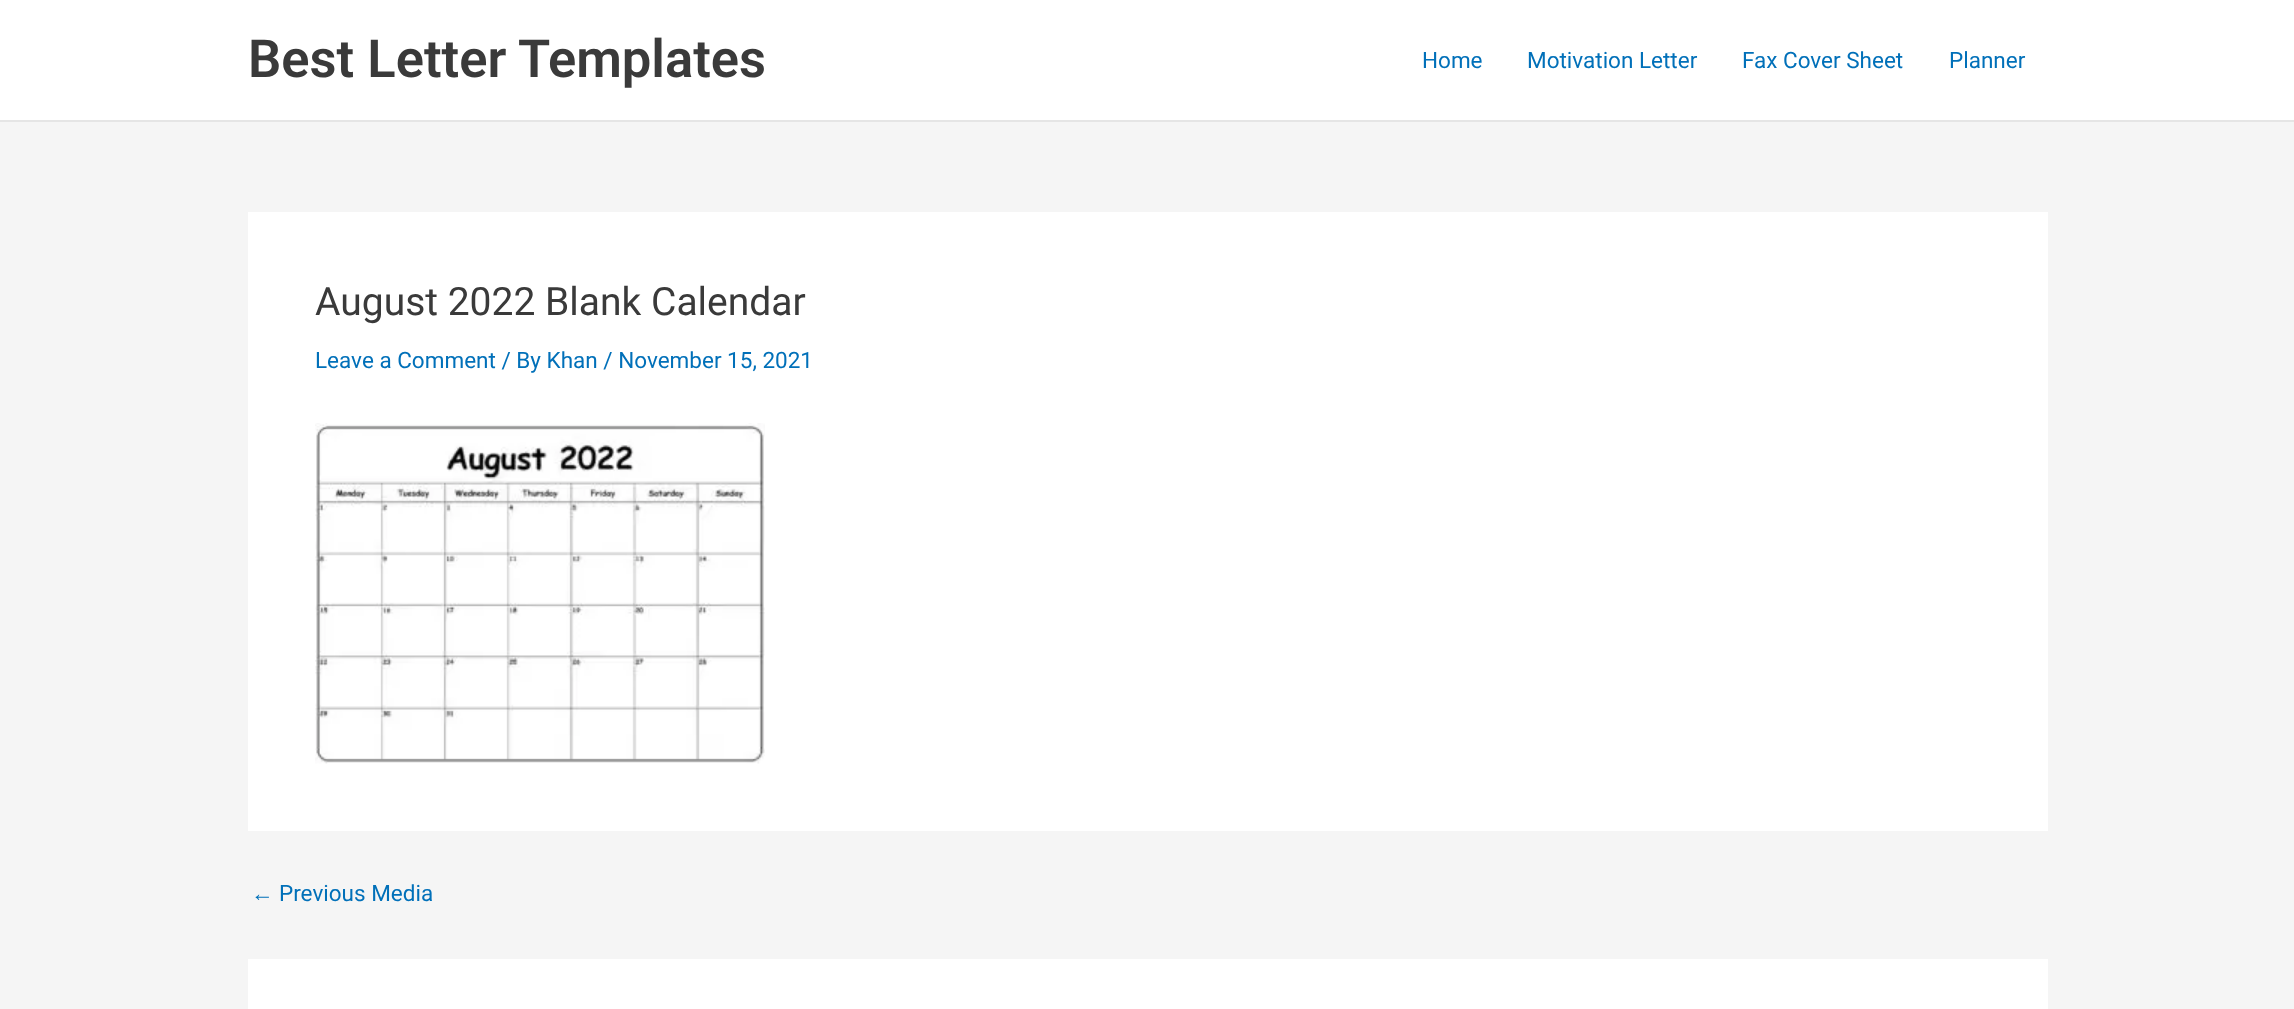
<svg xmlns="http://www.w3.org/2000/svg" xmlns:xlink="http://www.w3.org/1999/xlink" width="2294" height="1009" viewBox="0 0 2294 1009">
<style>
.cls-1{font:600 52.5px Roboto;fill:#3a3a3a}
.cls-2{font:22.5px Roboto;fill:#0170b9}
.cls-3{font:39px Roboto;fill:#3a3a3a}
.cls-4{font:22.5px Liberation Sans;fill:#0170b9}
</style>
<rect width="100%" height="100%" fill="#f5f5f5"/>
<rect fill="#ffffff" x="0" y="0" width="2294" height="120"/>
<rect fill="#e5e5e5" x="0" y="120" width="2294" height="2"/>
<rect fill="#ffffff" x="248" y="212" width="1800" height="619"/>
<image xlink:href="image0.png" x="315" y="423" width="450" height="341"/>
<rect fill="#ffffff" x="248" y="959" width="1800" height="50"/>
<text class="cls-1" x="248" y="77">Best Letter Templates</text>
<text class="cls-2" x="1422" y="68">Home</text>
<text class="cls-2" x="1527" y="68">Motivation Letter</text>
<text class="cls-2" x="1742" y="68">Fax Cover Sheet</text>
<text class="cls-2" x="1949" y="68">Planner</text>
<text class="cls-3" x="315" y="315">August 2022 Blank Calendar</text>
<text class="cls-2" x="315" y="368">Leave a Comment / By Khan / November 15, 2021</text>
<text class="cls-4" x="251" y="901">←</text>
<text class="cls-2" x="279" y="901">Previous Media</text>
</svg>
